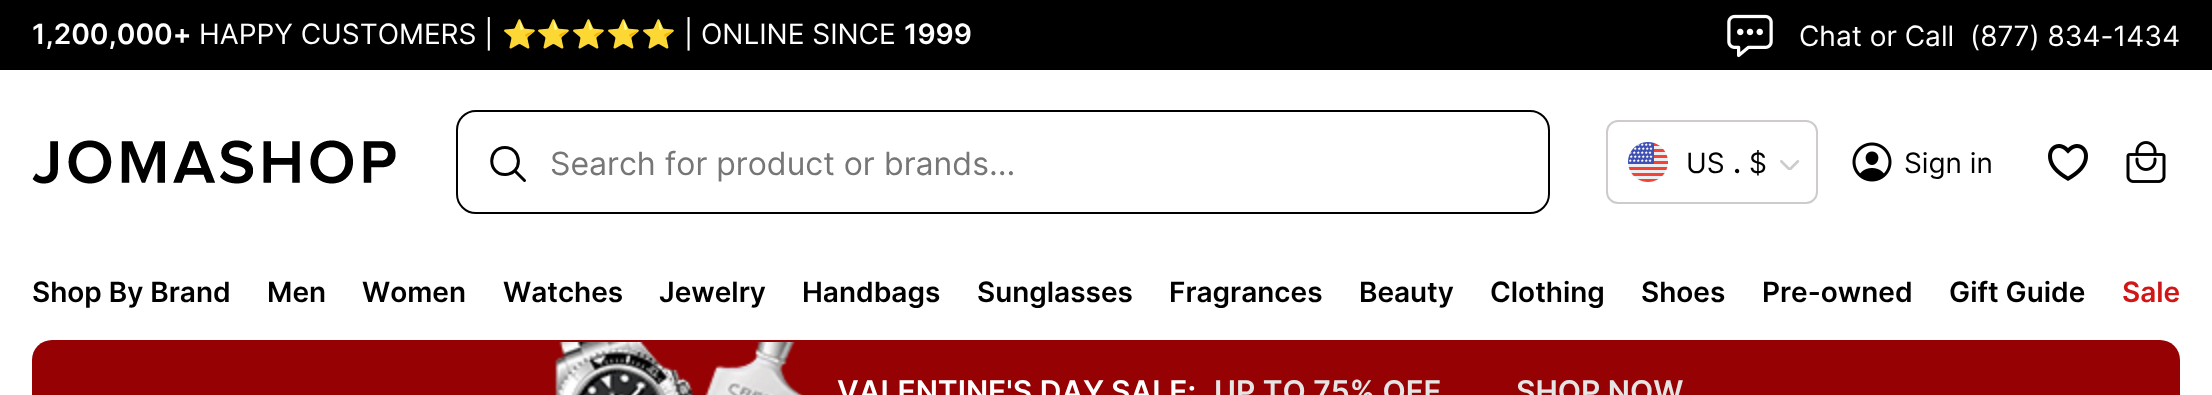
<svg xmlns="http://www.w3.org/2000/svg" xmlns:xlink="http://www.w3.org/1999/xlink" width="2212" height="395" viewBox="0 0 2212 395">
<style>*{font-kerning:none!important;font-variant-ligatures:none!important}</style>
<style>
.cls-1{font:600 28px Inter;fill:#ffffff}
.cls-2{font:28px Inter;fill:#ffffff}
.cls-3{font:28px Noto Color Emoji;fill:#ffffff}
.cls-4{font:32px Inter;fill:#767676}
.cls-5{font:28px Inter;fill:#000000}
.cls-6{font:600 28px Inter;fill:#000000}
.cls-7{font:600 28px Inter;fill:#d01616}
.cls-8{font:600 30px Inter;fill:#ffffff}
.cls-9{font:600 30px Inter;fill:#e5e5e5}
</style>
<rect width="100%" height="100%" fill="#ffffff"/>
<rect fill="#000000" x="0" y="0" width="2212" height="70"/>
<image xlink:href="image0.png" x="1727" y="14" width="46" height="44"/>
<image xlink:href="image1.png" x="32" y="140" width="364" height="44"/>
<rect fill="none" stroke="#000000" stroke-width="2" x="457" y="111" width="1092" height="102" rx="19"/>
<path fill="none" stroke="#000000" stroke-width="3" d="M505 147.5C487 147.5 487.5 175 505.5 174.5C523 174 522.5 147.5 505 147.5Z"/>
<path fill="none" stroke="#000000" stroke-width="3" stroke-linecap="round" d="M515 171L524.5 180.5"/>
<rect fill="none" stroke="#cfcbcb" stroke-width="2" x="1607" y="121" width="210" height="82" rx="11"/>
<image xlink:href="image2.png" x="1628" y="142" width="40" height="40"/>
<image xlink:href="image3.png" x="1780" y="160" width="20" height="10"/>
<image xlink:href="image4.png" x="1852" y="142" width="40" height="40"/>
<image xlink:href="image5.png" x="2048" y="144" width="40" height="37"/>
<image xlink:href="image6.png" x="2126" y="141" width="40" height="42"/>
<rect fill="#960103" x="32" y="340" width="2148" height="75" rx="20"/>
<image xlink:href="image7.png" x="554" y="342" width="249" height="53"/>
<text class="cls-1" x="32" y="44">1,200,000+</text>
<text class="cls-2" x="199" y="44">HAPPY CUSTOMERS |</text>
<text class="cls-3" x="502" y="44">⭐⭐⭐⭐⭐</text>
<text class="cls-2" x="684" y="44">| ONLINE SINCE</text>
<text class="cls-1" x="904" y="44">1999</text>
<text class="cls-2" x="1799" y="46">Chat or Call</text>
<text class="cls-2" x="1970" y="46">(877) 834-1434</text>
<text class="cls-4" x="550" y="175">Search for product or brands...</text>
<text class="cls-5" x="1686" y="173">US</text>
<text class="cls-6" x="1733" y="173">.</text>
<text class="cls-5" x="1749" y="173">$</text>
<text class="cls-5" x="1904" y="173">Sign in</text>
<text class="cls-6" x="32" y="302">Shop By Brand</text>
<text class="cls-6" x="267" y="302">Men</text>
<text class="cls-6" x="362" y="302">Women</text>
<text class="cls-6" x="503" y="302">Watches</text>
<text class="cls-6" x="659" y="302">Jewelry</text>
<text class="cls-6" x="802" y="302">Handbags</text>
<text class="cls-6" x="977" y="302">Sunglasses</text>
<text class="cls-6" x="1169" y="302">Fragrances</text>
<text class="cls-6" x="1359" y="302">Beauty</text>
<text class="cls-6" x="1490" y="302">Clothing</text>
<text class="cls-6" x="1641" y="302">Shoes</text>
<text class="cls-6" x="1762" y="302">Pre-owned</text>
<text class="cls-6" x="1949" y="302">Gift Guide</text>
<text class="cls-7" x="2122" y="302">Sale</text>
<text class="cls-8" x="837" y="402">VALENTINE'S DAY</text>
<text class="cls-8" x="1111" y="402">SALE:</text>
<text class="cls-9" x="1214" y="402">UP TO 75% OFF</text>
<text class="cls-9" x="1516" y="402">SHOP NOW</text>
</svg>
